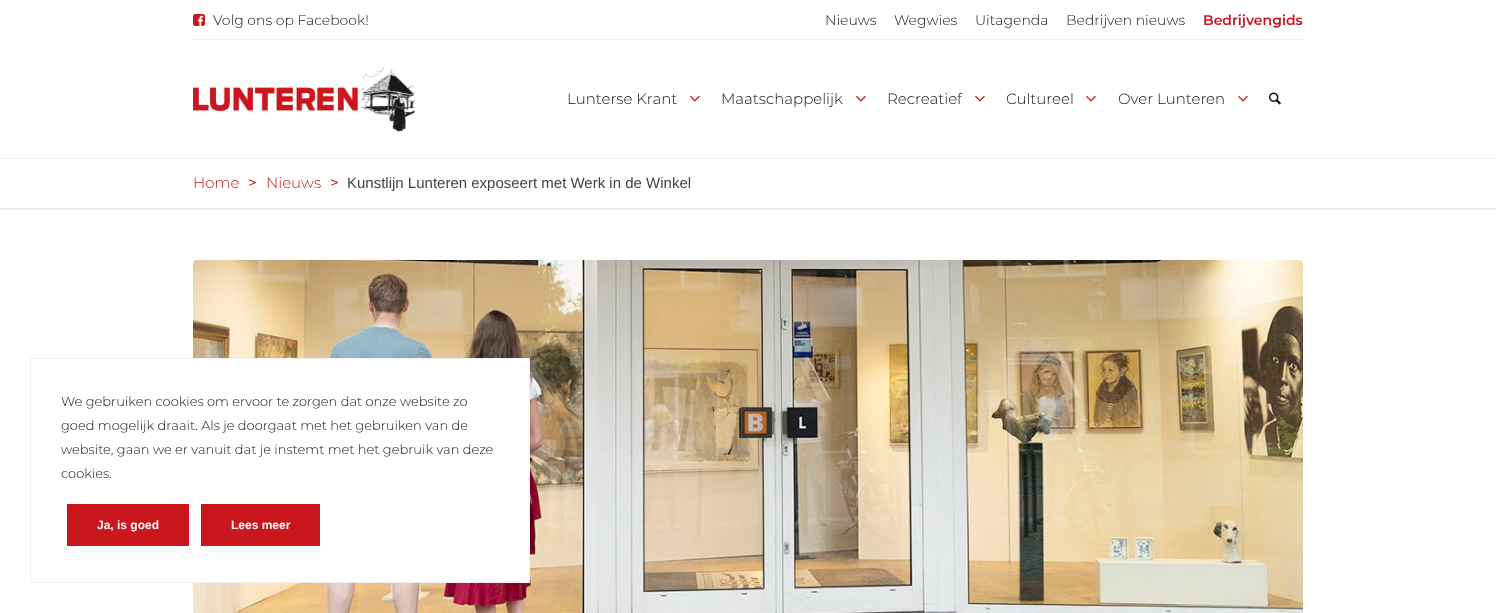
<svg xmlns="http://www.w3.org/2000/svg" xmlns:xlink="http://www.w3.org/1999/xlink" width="1496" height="613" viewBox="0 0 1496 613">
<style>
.cls-1{font:300 14px Montserrat;fill:#111111}
.cls-2{font:600 14px Montserrat;fill:#ca161d}
.cls-3{font:300 15px Montserrat;fill:#111111}
.cls-4{font:300 15px Montserrat;fill:#ca161d}
.cls-5{font:bold 15px Montserrat;fill:#ca161d}
.cls-6{font:15px Liberation Sans;fill:#444444}
.cls-7{font:300 13px Montserrat;fill:#111111}
.cls-8{font:bold 12px Liberation Sans;fill:#ffffff}
</style>
<rect width="100%" height="100%" fill="#ffffff"/>
<image xlink:href="image0.png" x="193" y="14" width="12" height="12"/>
<rect fill="#f0f0f0" x="193" y="39" width="1110" height="1"/>
<image xlink:href="image1.png" x="193" y="67" width="222" height="65"/>
<image xlink:href="image2.png" x="690" y="95" width="10" height="7"/>
<image xlink:href="image2.png" x="856" y="95" width="10" height="7"/>
<image xlink:href="image2.png" x="975" y="95" width="10" height="7"/>
<image xlink:href="image2.png" x="1086" y="95" width="10" height="7"/>
<image xlink:href="image2.png" x="1238" y="95" width="10" height="7"/>
<image xlink:href="image3.png" x="1269" y="92" width="12" height="13"/>
<rect fill="#f0f0f0" x="0" y="158" width="1496" height="1"/>
<rect fill="#f0f0f0" x="0" y="208" width="1496" height="2"/>
<image xlink:href="image4.png" x="193" y="260" width="1110" height="353"/>
<rect fill="#ffffff" x="193" y="359" width="336" height="223"/>
<rect fill="none" stroke="#f0f0f0" x="30.5" y="358.5" width="499" height="224"/>
<rect fill="#ca161d" x="67" y="504" width="122" height="42"/>
<rect fill="#ca161d" x="201" y="504" width="119" height="42"/>
<text class="cls-1" x="213" y="25">Volg ons op Facebook!</text>
<text class="cls-1" x="825" y="25">Nieuws</text>
<text class="cls-1" x="894" y="25">Wegwies</text>
<text class="cls-1" x="975" y="25">Uitagenda</text>
<text class="cls-1" x="1066" y="25">Bedrijven nieuws</text>
<text class="cls-2" x="1203" y="25">Bedrijvengids</text>
<text class="cls-3" x="567" y="104">Lunterse Krant</text>
<text class="cls-3" x="721" y="104">Maatschappelijk</text>
<text class="cls-3" x="887" y="104">Recreatief</text>
<text class="cls-3" x="1006" y="104">Cultureel</text>
<text class="cls-3" x="1118" y="104">Over Lunteren</text>
<text class="cls-4" x="193" y="188">Home</text>
<text class="cls-5" x="248" y="188">&gt;</text>
<text class="cls-4" x="266" y="188">Nieuws</text>
<text class="cls-5" x="330" y="188">&gt;</text>
<text class="cls-6" x="347" y="188">Kunstlijn Lunteren exposeert met Werk in de Winkel</text>
<text class="cls-7"><tspan x="61" y="406">We gebruiken cookies om ervoor te zorgen dat onze website zo</tspan><tspan x="61" y="430">goed mogelijk draait. Als je doorgaat met het gebruiken van de</tspan><tspan x="61" y="454">website, gaan we er vanuit dat je instemt met het gebruik van deze</tspan><tspan x="61" y="478">cookies.</tspan></text>
<text class="cls-8" x="97" y="529">Ja, is goed</text>
<text class="cls-8" x="231" y="529">Lees meer</text>
</svg>
